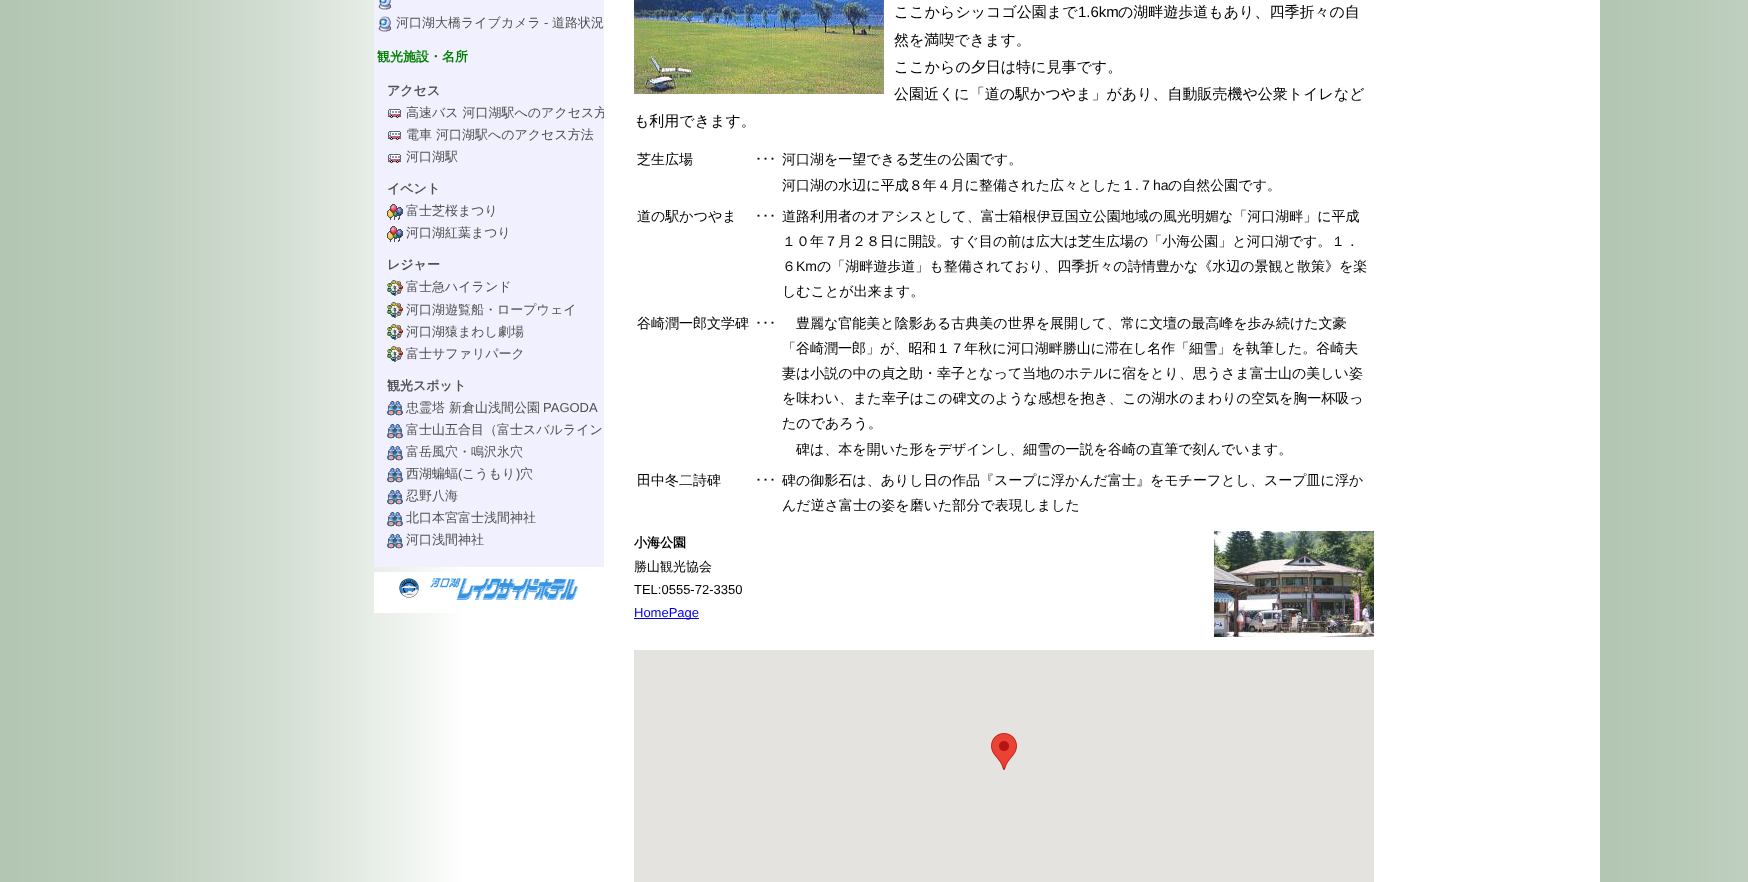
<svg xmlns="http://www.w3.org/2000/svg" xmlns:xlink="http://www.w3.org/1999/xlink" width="1748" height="882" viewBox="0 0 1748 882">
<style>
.cls-1{font:500 13px WenQuanYi Zen Hei;fill:#505050}
.cls-2{font:13px Liberation Sans;fill:#505050}
.cls-3{font:bold 13px WenQuanYi Zen Hei;fill:#008000}
.cls-4{font:bold 13px WenQuanYi Zen Hei;fill:#505050}
.cls-5{font:500 15px WenQuanYi Zen Hei;fill:#000000}
.cls-6{font:15px Liberation Sans;fill:#000000}
.cls-7{font:500 14px WenQuanYi Zen Hei;fill:#000000}
.cls-8{font:14px IPAGothic;fill:#000000}
.cls-9{font:14px Liberation Sans;fill:#000000}
.cls-10{font:bold 13px WenQuanYi Zen Hei;fill:#000000}
.cls-11{font:500 13px WenQuanYi Zen Hei;fill:#000000}
.cls-12{font:13px Liberation Sans;fill:#000000}
.cls-13{font:13px Liberation Sans;fill:#0000ee}
</style>
<defs>
<clipPath id="clip1"><rect x="374" y="0" width="230" height="567"/></clipPath>
</defs>
<rect width="100%" height="100%" fill="#ffffff"/>
<image xlink:href="image0.png" x="0" y="0" width="1748" height="882"/>
<rect fill="#f0f0ff" x="374" y="0" width="230" height="567"/>
<image xlink:href="image1.png" x="378" y="0" width="14" height="10"/>
<image xlink:href="image2.png" x="378" y="16" width="14" height="16"/>
<image xlink:href="image3.png" x="388" y="109" width="13" height="9"/>
<image xlink:href="image3.png" x="388" y="131" width="13" height="9"/>
<image xlink:href="image3.png" x="388" y="154" width="13" height="9"/>
<image xlink:href="image4.png" x="387" y="204" width="16" height="16"/>
<image xlink:href="image4.png" x="387" y="226" width="16" height="16"/>
<image xlink:href="image5.png" x="387" y="280" width="16" height="16"/>
<image xlink:href="image5.png" x="387" y="302" width="16" height="16"/>
<image xlink:href="image5.png" x="387" y="324" width="16" height="16"/>
<image xlink:href="image5.png" x="387" y="346" width="16" height="16"/>
<image xlink:href="image6.png" x="387" y="401" width="16" height="15"/>
<image xlink:href="image6.png" x="387" y="424" width="16" height="15"/>
<image xlink:href="image6.png" x="387" y="446" width="16" height="15"/>
<image xlink:href="image6.png" x="387" y="468" width="16" height="15"/>
<image xlink:href="image6.png" x="387" y="490" width="16" height="15"/>
<image xlink:href="image6.png" x="387" y="512" width="16" height="15"/>
<image xlink:href="image6.png" x="387" y="534" width="16" height="15"/>
<rect fill="#ffffff" x="374" y="572" width="82" height="41"/>
<image xlink:href="image7.png" x="399" y="578" width="20" height="20"/>
<image xlink:href="image8.png" x="430" y="578" width="148" height="22"/>
<image xlink:href="image9.png" x="634" y="0" width="250" height="94"/>
<rect fill="#0000ee" x="634" y="618" width="65" height="1"/>
<image xlink:href="image10.png" x="1214" y="531" width="160" height="106"/>
<rect fill="#e5e3df" x="634" y="650" width="740" height="232"/>
<image xlink:href="image11.png" x="991" y="733" width="26" height="37"/>
<text class="cls-1" x="396" y="27">河口湖大橋ライブカメラ</text>
<text class="cls-2" x="544" y="27">-</text>
<text class="cls-1" x="552" y="27">道路状況</text>
<text class="cls-3" x="377" y="61">観光施設・名所</text>
<text class="cls-4" x="387" y="95">アクセス</text>
<g clip-path="url(#clip1)">
<text class="cls-1" x="406" y="117">高速バス 河口湖駅へのアクセス方</text>
</g>
<text class="cls-1"><tspan x="406" y="139">電車 河口湖駅へのアクセス方法</tspan><tspan x="406" y="161">河口湖駅</tspan></text>
<text class="cls-4" x="387" y="193">イベント</text>
<text class="cls-1"><tspan x="406" y="215">富士芝桜まつり</tspan><tspan x="406" y="237">河口湖紅葉まつり</tspan></text>
<text class="cls-4" x="387" y="269">レジャー</text>
<text class="cls-1"><tspan x="406" y="291">富士急ハイランド</tspan><tspan x="406" y="314">河口湖遊覧船・ロープウェイ</tspan><tspan x="406" y="336">河口湖猿まわし劇場</tspan><tspan x="406" y="358">富士サファリパーク</tspan></text>
<text class="cls-4" x="387" y="390">観光スポット</text>
<text class="cls-1" x="406" y="412">忠霊塔 新倉山浅間公園</text>
<text class="cls-2" x="543" y="412">PAGODA</text>
<text class="cls-1"><tspan x="406" y="434">富士山五合目（富士スバルライン</tspan><tspan x="406" y="456">富岳風穴・鳴沢氷穴</tspan><tspan x="406" y="478">西湖蝙蝠</tspan></text>
<text class="cls-2" x="458" y="478">(</text>
<text class="cls-1" x="462" y="478">こうもり</text>
<text class="cls-2" x="516" y="478">)</text>
<text class="cls-1" x="520" y="478">穴</text>
<text class="cls-1"><tspan x="406" y="500">忍野八海</tspan><tspan x="406" y="522">北口本宮富士浅間神社</tspan><tspan x="406" y="544">河口浅間神社</tspan></text>
<text class="cls-5" x="894" y="17">ここからシッコゴ公園まで</text>
<text class="cls-6" x="1078" y="17">1.6km</text>
<text class="cls-5" x="1118" y="17">の湖畔遊歩道もあり、四季折々の自</text>
<text class="cls-5"><tspan x="894" y="45">然を満喫できます。</tspan><tspan x="894" y="72">ここからの夕日は特に見事です。</tspan><tspan x="894" y="99">公園近くに「道の駅かつやま」があり、自動販売機や公衆トイレなど</tspan></text>
<text class="cls-5" x="634" y="126">も利用できます。</text>
<text class="cls-7" x="637" y="164">芝生広場</text>
<text class="cls-8" x="755" y="164">･･･</text>
<text class="cls-7"><tspan x="782" y="164">河口湖を一望できる芝生の公園です。</tspan><tspan x="782" y="190">河口湖の水辺に平成８年４月に整備された広々とした１</tspan></text>
<text class="cls-9" x="1135" y="190">.</text>
<text class="cls-7" x="1139" y="190">７</text>
<text class="cls-9" x="1153" y="190">ha</text>
<text class="cls-7" x="1168" y="190">の自然公園です。</text>
<text class="cls-7" x="637" y="221">道の駅かつやま</text>
<text class="cls-8" x="755" y="221">･･･</text>
<text class="cls-7"><tspan x="782" y="221">道路利用者のオアシスとして、富士箱根伊豆国立公園地域の風光明媚な「河口湖畔」に平成</tspan><tspan x="782" y="246">１０年７月２８日に開設。すぐ目の前は広大は芝生広場の「小海公園」と河口湖です。１．</tspan><tspan x="782" y="271">６</tspan></text>
<text class="cls-9" x="796" y="271">Km</text>
<text class="cls-7" x="817" y="271">の「湖畔遊歩道」も整備されており、四季折々の詩情豊かな《水辺の景観と散策》を楽</text>
<text class="cls-7" x="782" y="296">しむことが出来ます。</text>
<text class="cls-7" x="637" y="328">谷崎潤一郎文学碑</text>
<text class="cls-8" x="755" y="328">･･･</text>
<text class="cls-7" x="796" y="328">豊麗な官能美と陰影ある古典美の世界を展開して、常に文壇の最高峰を歩み続けた文豪</text>
<text class="cls-7"><tspan x="782" y="353">「谷崎潤一郎」が、昭和１７年秋に河口湖畔勝山に滞在し名作「細雪」を執筆した。谷崎夫</tspan><tspan x="782" y="378">妻は小説の中の貞之助・幸子となって当地のホテルに宿をとり、思うさま富士山の美しい姿</tspan><tspan x="782" y="403">を味わい、また幸子はこの碑文のような感想を抱き、この湖水のまわりの空気を胸一杯吸っ</tspan><tspan x="782" y="428">たのであろう。</tspan></text>
<text class="cls-7" x="796" y="454">碑は、本を開いた形をデザインし、細雪の一説を谷崎の直筆で刻んでいます。</text>
<text class="cls-7" x="637" y="485">田中冬二詩碑</text>
<text class="cls-8" x="755" y="485">･･･</text>
<text class="cls-7"><tspan x="782" y="485">碑の御影石は、ありし日の作品『スープに浮かんだ富士』をモチーフとし、スープ皿に浮か</tspan><tspan x="782" y="510">んだ逆さ富士の姿を磨いた部分で表現しました</tspan></text>
<text class="cls-10" x="634" y="547">小海公園</text>
<text class="cls-11" x="634" y="571">勝山観光協会</text>
<text class="cls-12" x="634" y="594">TEL:0555-72-3350</text>
<text class="cls-13" x="634" y="617">HomePage</text>
</svg>
